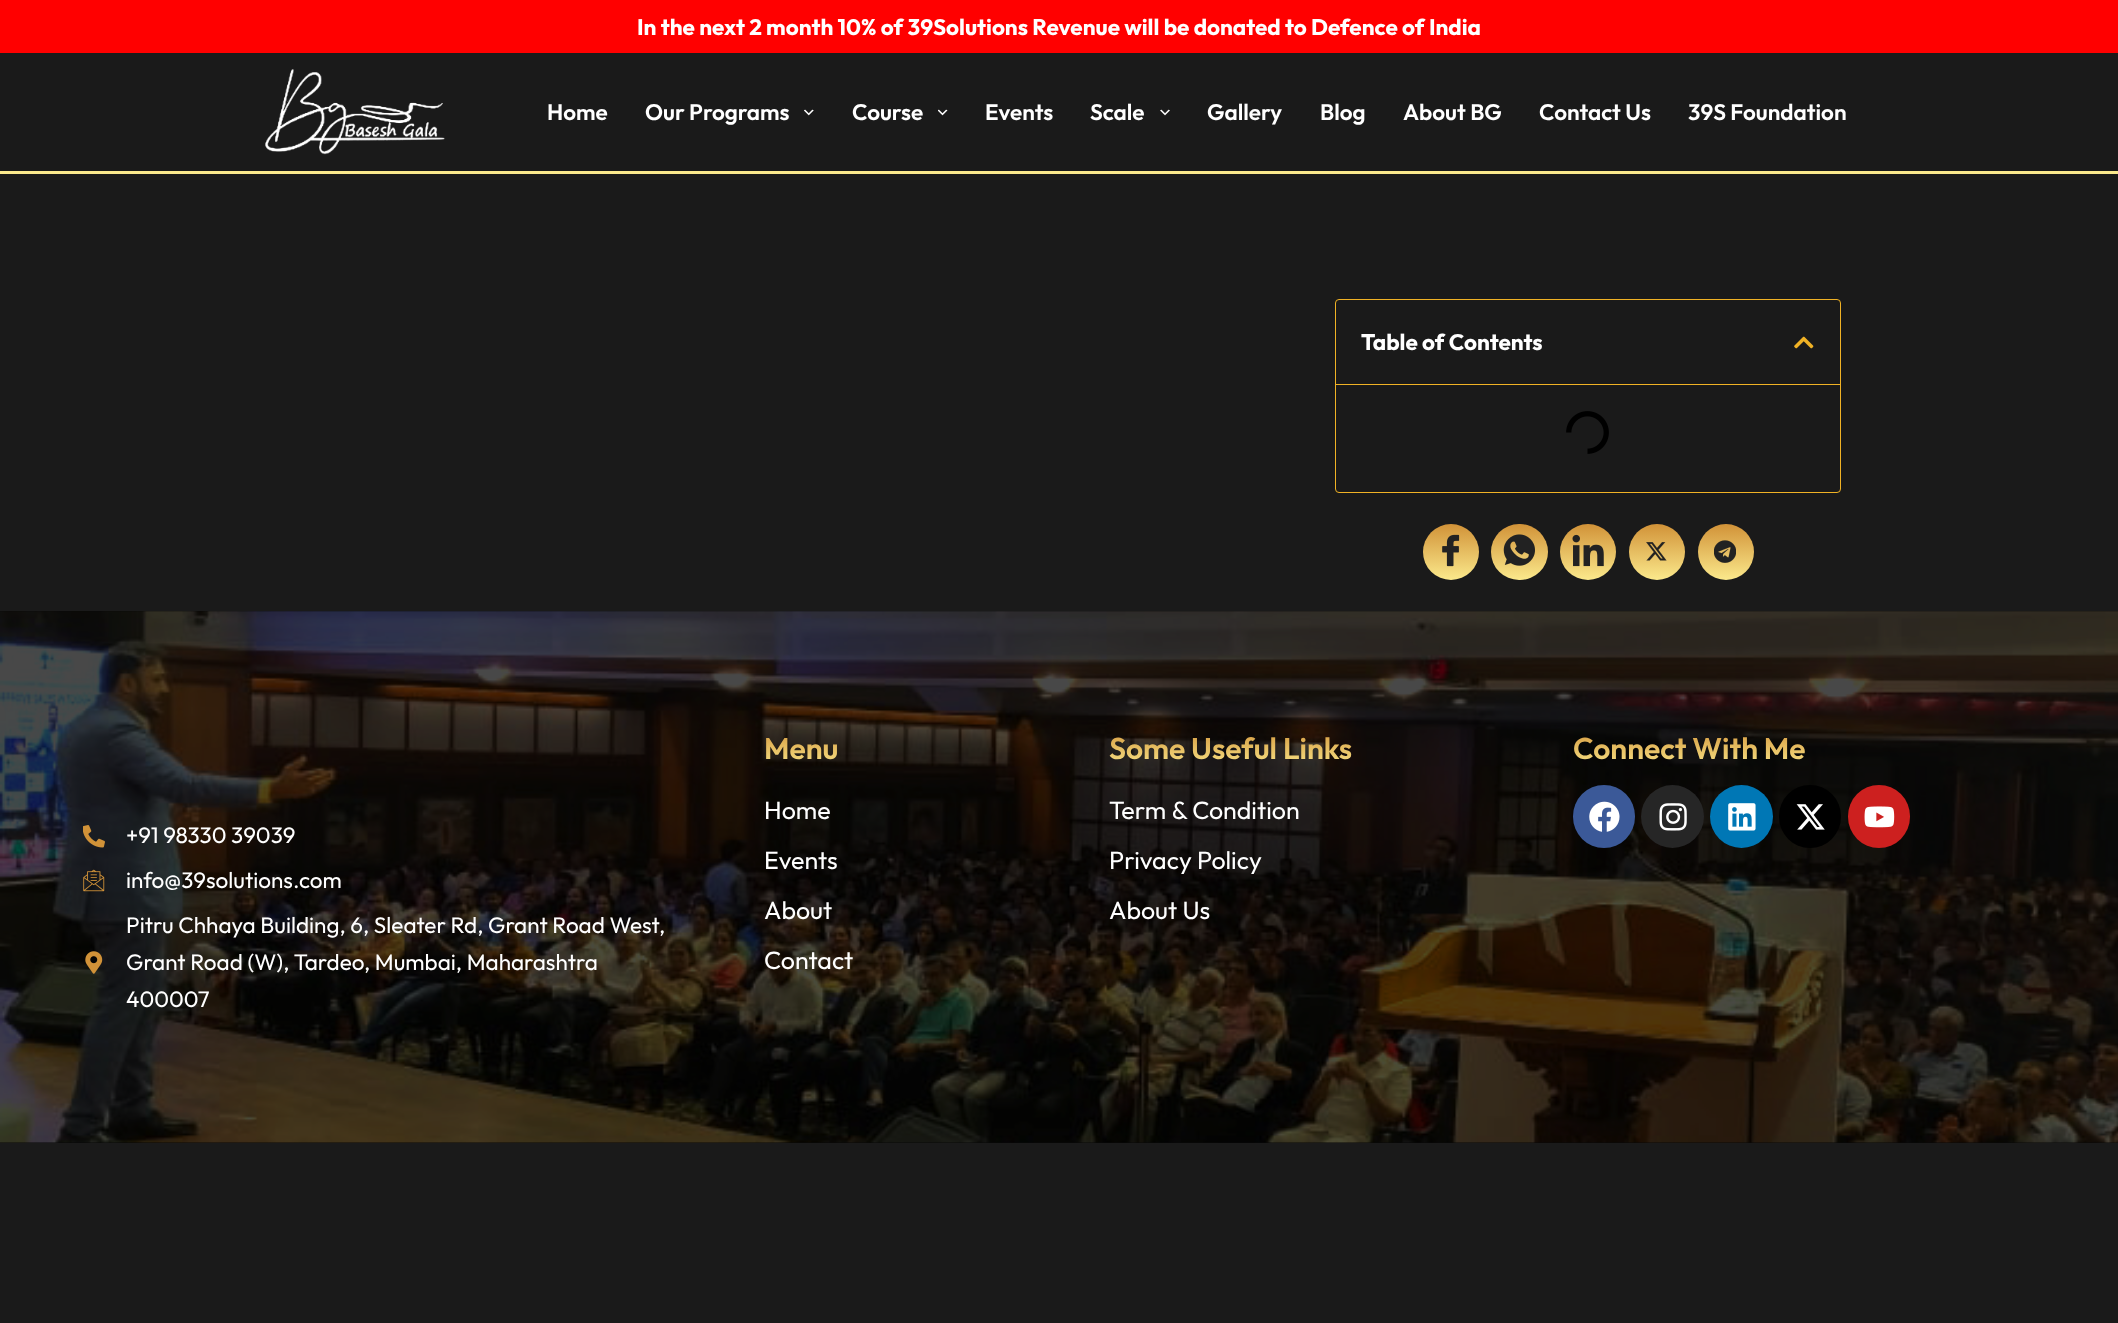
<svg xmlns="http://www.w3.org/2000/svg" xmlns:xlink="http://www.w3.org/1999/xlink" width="2118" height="1323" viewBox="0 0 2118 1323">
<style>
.cls-1{font:bold 22.5px Outfit;fill:#ffffff}
.cls-2{font:600 22.5px Outfit;fill:#ffffff}
.cls-3{font:600 30px Outfit;fill:url(#g1)}
.cls-4{font:25px Outfit;fill:#ffffff}
.cls-5{font:600 30px Outfit;fill:url(#g2)}
.cls-6{font:600 30px Outfit;fill:url(#g3)}
.cls-7{font:22.5px Outfit;fill:#ffffff}
</style>
<defs>
<linearGradient id="g1" gradientUnits="userSpaceOnUse" x1="918" y1="726" x2="918" y2="770"><stop offset="0" stop-color="#d19238"/><stop offset="1" stop-color="#fbe98c"/></linearGradient>
<linearGradient id="g2" gradientUnits="userSpaceOnUse" x1="1322" y1="726" x2="1322" y2="770"><stop offset="0" stop-color="#d19238"/><stop offset="1" stop-color="#fbe98c"/></linearGradient>
<linearGradient id="g3" gradientUnits="userSpaceOnUse" x1="1821" y1="726" x2="1821" y2="770"><stop offset="0" stop-color="#d19238"/><stop offset="1" stop-color="#fbe98c"/></linearGradient>
<linearGradient id="g4" gradientUnits="userSpaceOnUse" x1="1451" y1="524" x2="1451" y2="580"><stop offset="0" stop-color="#d19238"/><stop offset="1" stop-color="#fbe98c"/></linearGradient>
<linearGradient id="g5" gradientUnits="userSpaceOnUse" x1="1519" y1="524" x2="1519" y2="580"><stop offset="0" stop-color="#d19238"/><stop offset="1" stop-color="#fbe98c"/></linearGradient>
<linearGradient id="g6" gradientUnits="userSpaceOnUse" x1="1588" y1="524" x2="1588" y2="580"><stop offset="0" stop-color="#d19238"/><stop offset="1" stop-color="#fbe98c"/></linearGradient>
<linearGradient id="g7" gradientUnits="userSpaceOnUse" x1="1657" y1="524" x2="1657" y2="580"><stop offset="0" stop-color="#d19238"/><stop offset="1" stop-color="#fbe98c"/></linearGradient>
<linearGradient id="g8" gradientUnits="userSpaceOnUse" x1="1726" y1="524" x2="1726" y2="580"><stop offset="0" stop-color="#d19238"/><stop offset="1" stop-color="#fbe98c"/></linearGradient>
</defs>
<rect width="100%" height="100%" fill="#1a1a1a"/>
<rect fill="#080808" x="0" y="611" width="2118" height="532"/>
<rect fill="#ff0000" x="0" y="0" width="2118" height="53"/>
<rect fill="#fbe98c" x="0" y="171" width="2118" height="3"/>
<image xlink:href="image0.png" x="265" y="69" width="180" height="86"/>
<image xlink:href="image1.png" x="804" y="109" width="10" height="7"/>
<image xlink:href="image2.png" x="938" y="109" width="10" height="7"/>
<image xlink:href="image3.png" x="1160" y="109" width="10" height="7"/>
<rect fill="none" stroke="#f0b225" x="1335.5" y="299.5" width="505" height="193" rx="3.5"/>
<rect fill="#f0b225" x="1336" y="384" width="504" height="1"/>
<image xlink:href="image4.png" x="1794" y="336" width="20" height="13"/>
<image xlink:href="image5.png" x="1566" y="411" width="43" height="43"/>
<circle fill="url(#g4)" cx="1451" cy="552" r="28"/>
<image xlink:href="image6.png" x="1442" y="534" width="18" height="33"/>
<rect fill="url(#g5)" x="1491" y="524" width="57" height="56" rx="28"/>
<image xlink:href="image7.png" x="1503" y="534" width="32" height="32"/>
<circle fill="url(#g6)" cx="1588" cy="552" r="28"/>
<image xlink:href="image8.png" x="1572" y="534" width="32" height="33"/>
<circle fill="url(#g7)" cx="1657" cy="552" r="28"/>
<image xlink:href="image9.png" x="1646" y="542" width="21" height="19"/>
<circle fill="url(#g8)" cx="1726" cy="552" r="28"/>
<image xlink:href="image10.png" x="1714" y="540" width="22" height="23"/>
<image xlink:href="image11.png" x="0" y="611" width="2118" height="532"/>
<rect fill="#3b5998" x="1573" y="785" width="62" height="63" rx="31"/>
<image xlink:href="image12.png" x="1589" y="801" width="31" height="31"/>
<circle fill="#262626" cx="1672.5" cy="816.5" r="31.5"/>
<image xlink:href="image13.png" x="1659" y="803" width="28" height="28"/>
<circle fill="#0077b5" cx="1741.5" cy="816.5" r="31.5"/>
<image xlink:href="image14.png" x="1728" y="803" width="28" height="28"/>
<rect fill="#000000" x="1779" y="785" width="62" height="63" rx="31"/>
<image xlink:href="image15.png" x="1796" y="804" width="29" height="26"/>
<rect fill="#cd201f" x="1848" y="785" width="62" height="63" rx="31"/>
<image xlink:href="image16.png" x="1864" y="806" width="31" height="22"/>
<image xlink:href="image17.png" x="83" y="825" width="22" height="23"/>
<image xlink:href="image18.png" x="83" y="869" width="22" height="23"/>
<image xlink:href="image19.png" x="85" y="951" width="18" height="23"/>
<text class="cls-1" x="637" y="35">In the next 2 month 10% of 39Solutions Revenue will be donated to Defence of India</text>
<text class="cls-2" x="547" y="120">Home</text>
<text class="cls-2" x="645" y="120">Our Programs</text>
<text class="cls-2" x="852" y="120">Course</text>
<text class="cls-2" x="985" y="120">Events</text>
<text class="cls-2" x="1090" y="120">Scale</text>
<text class="cls-2" x="1207" y="120">Gallery</text>
<text class="cls-2" x="1320" y="120">Blog</text>
<text class="cls-2" x="1403" y="120">About BG</text>
<text class="cls-2" x="1539" y="120">Contact Us</text>
<text class="cls-2" x="1688" y="120">39S Foundation</text>
<text class="cls-1" x="1361" y="350">Table of Contents</text>
<text class="cls-3" x="764" y="759">Menu</text>
<text class="cls-4" x="764" y="819">Home</text>
<text class="cls-4" x="764" y="869">Events</text>
<text class="cls-4" x="764" y="919">About</text>
<text class="cls-4" x="764" y="969">Contact</text>
<text class="cls-5" x="1109" y="759">Some Useful Links</text>
<text class="cls-4" x="1109" y="819">Term &amp; Condition</text>
<text class="cls-4" x="1109" y="869">Privacy Policy</text>
<text class="cls-4" x="1109" y="919">About Us</text>
<text class="cls-6" x="1573" y="759">Connect With Me</text>
<text class="cls-7" x="126" y="843">+91 98330 39039</text>
<text class="cls-7" x="126" y="888">info@39solutions.com</text>
<text class="cls-7"><tspan x="126" y="933">Pitru Chhaya Building, 6, Sleater Rd, Grant Road West,</tspan><tspan x="126" y="970">Grant Road (W), Tardeo, Mumbai, Maharashtra</tspan><tspan x="126" y="1007">400007</tspan></text>
</svg>
